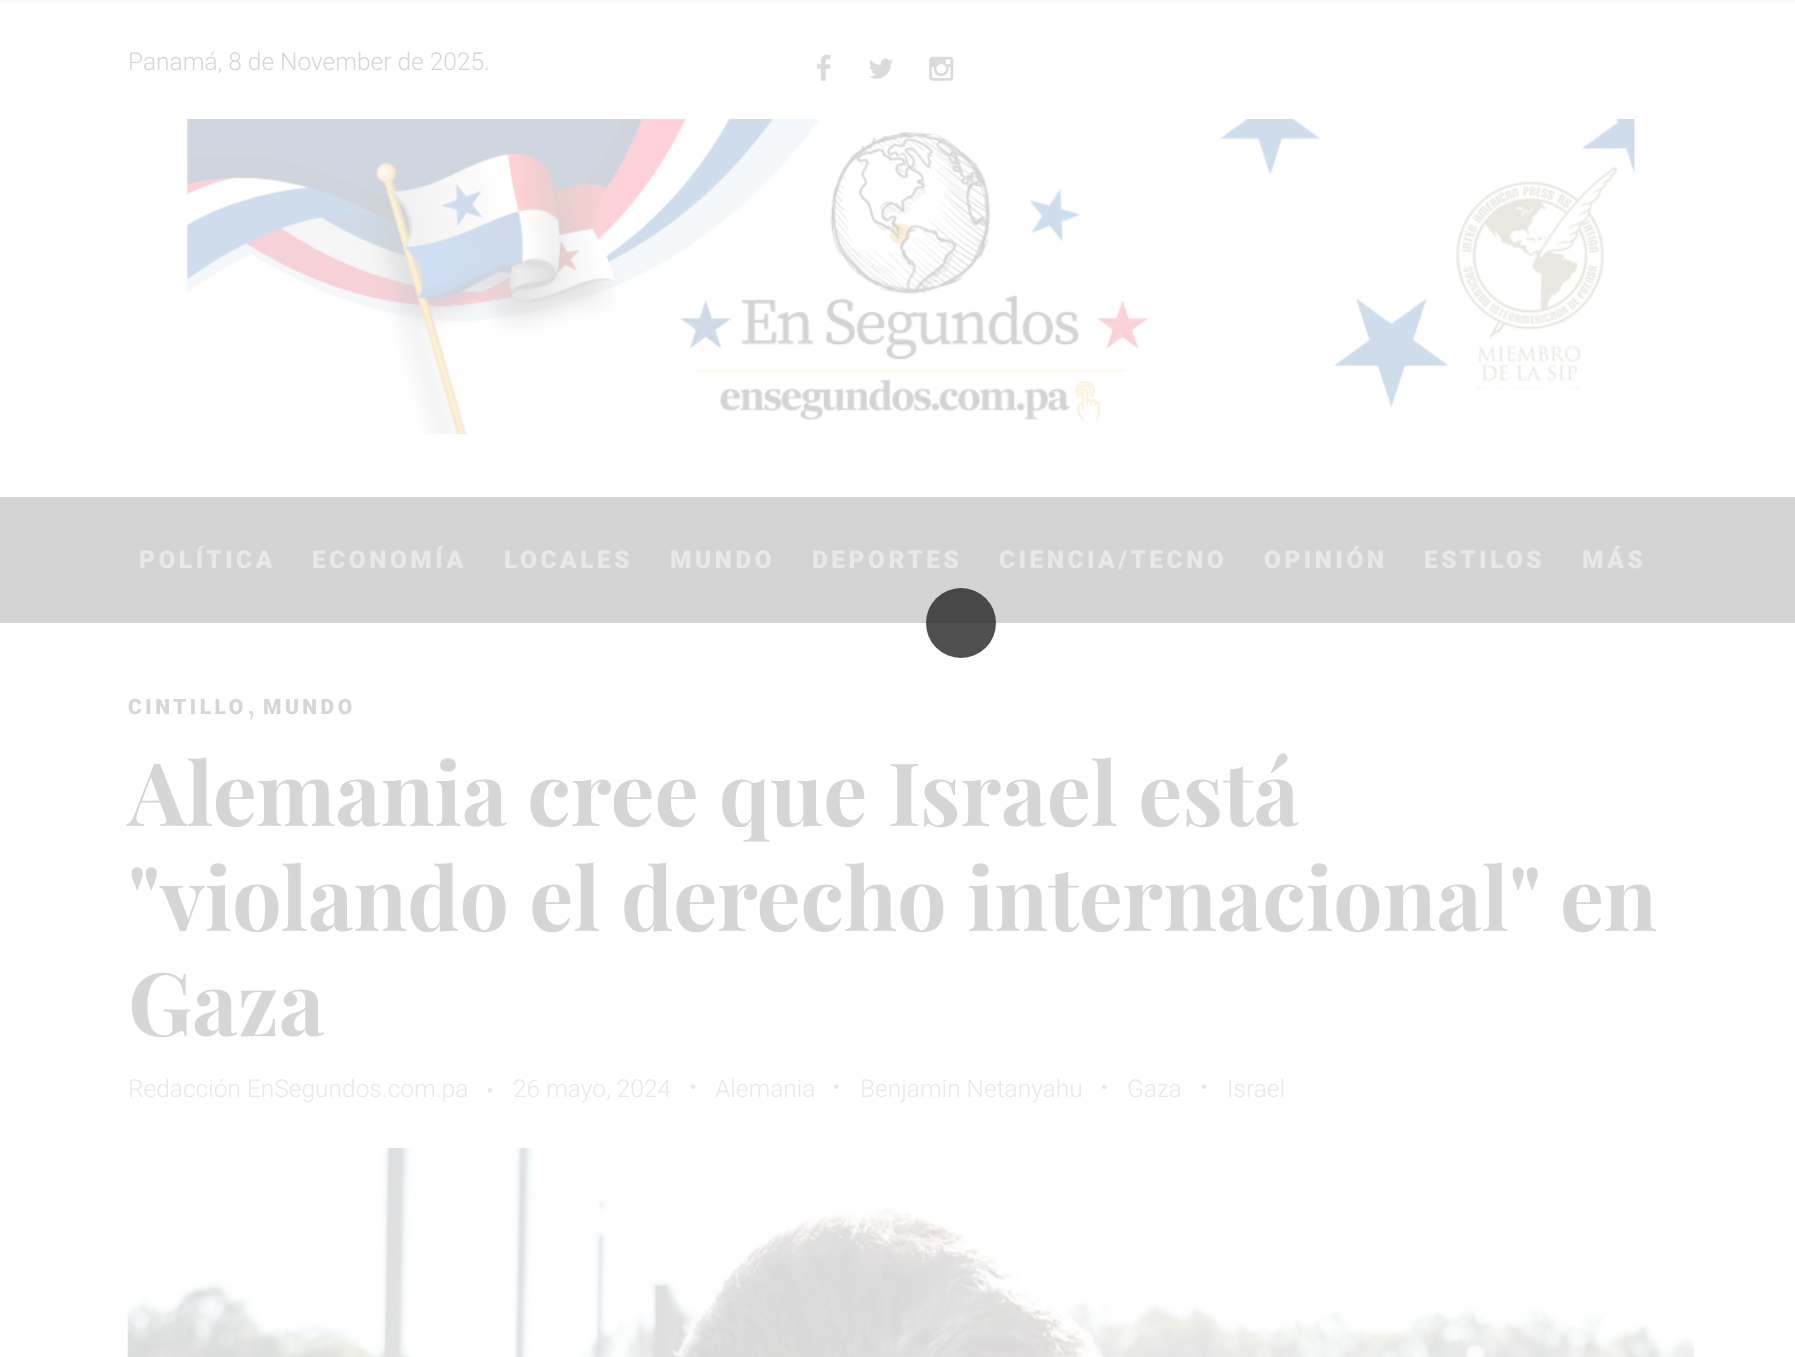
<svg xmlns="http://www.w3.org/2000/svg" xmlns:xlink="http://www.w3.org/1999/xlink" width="1795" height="1357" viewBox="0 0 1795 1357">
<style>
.cls-1{font:300 24.5px Roboto;fill:#d6d6d6}
.cls-2{font:900 24.5px Roboto;letter-spacing:3.5px;fill:#e8e8e8}
.cls-3{font:900 21px Roboto;letter-spacing:3.5px;fill:#d6d6d6}
.cls-4{font:32px Lora;fill:#d6d6d6}
.cls-5{font:bold 87.5px Playfair Display;fill:#d6d6d6}
.cls-6{font:300 24.5px Roboto;fill:#e8e8e8}
</style>
<rect width="100%" height="100%" fill="#ffffff"/>
<rect fill="#f9f9f9" x="0" y="0" width="1795" height="2"/>
<image xlink:href="image0.png" x="817" y="54" width="14" height="27"/>
<image xlink:href="image1.png" x="868" y="58" width="26" height="21"/>
<image xlink:href="image2.png" x="929" y="56" width="25" height="25"/>
<image xlink:href="image3.png" x="187" y="119" width="1448" height="315"/>
<rect fill="#d4d4d4" x="0" y="497" width="1795" height="126"/>
<image xlink:href="image4.png" x="487" y="1088" width="6" height="5"/>
<image xlink:href="image5.png" x="690" y="1084" width="6" height="5"/>
<image xlink:href="image6.png" x="834" y="1084" width="5" height="6"/>
<image xlink:href="image7.png" x="1101" y="1084" width="6" height="6"/>
<image xlink:href="image5.png" x="1201" y="1084" width="6" height="5"/>
<image xlink:href="image8.png" x="127" y="1148" width="1567" height="209"/>
<circle fill="#282828" fill-opacity="0.81" cx="961" cy="623" r="35"/>
<text class="cls-1" x="128" y="70">Panamá, 8 de November de 2025.</text>
<text class="cls-2" x="139" y="568">POLÍTICA</text>
<text class="cls-2" x="312" y="568">ECONOMÍA</text>
<text class="cls-2" x="504" y="568">LOCALES</text>
<text class="cls-2" x="670" y="568">MUNDO</text>
<text class="cls-2" x="812" y="568">DEPORTES</text>
<text class="cls-2" x="999" y="568">CIENCIA/TECNO</text>
<text class="cls-2" x="1264" y="568">OPINIÓN</text>
<text class="cls-2" x="1424" y="568">ESTILOS</text>
<text class="cls-2" x="1582" y="568">MÁS</text>
<text class="cls-3" x="128" y="714">CINTILLO</text>
<text class="cls-4" x="247" y="714">,</text>
<text class="cls-3" x="263" y="714">MUNDO</text>
<text class="cls-5"><tspan x="128" y="826">Alemania cree que Israel está</tspan><tspan x="128" y="931">"violando el derecho internacional" en</tspan><tspan x="128" y="1036">Gaza</tspan></text>
<text class="cls-6" x="128" y="1097">Redacción EnSegundos.com.pa</text>
<text class="cls-6" x="513" y="1097">26 mayo, 2024</text>
<text class="cls-6" x="715" y="1097">Alemania</text>
<text class="cls-6" x="860" y="1097">Benjamin Netanyahu</text>
<text class="cls-6" x="1127" y="1097">Gaza</text>
<text class="cls-6" x="1227" y="1097">Israel</text>
</svg>
